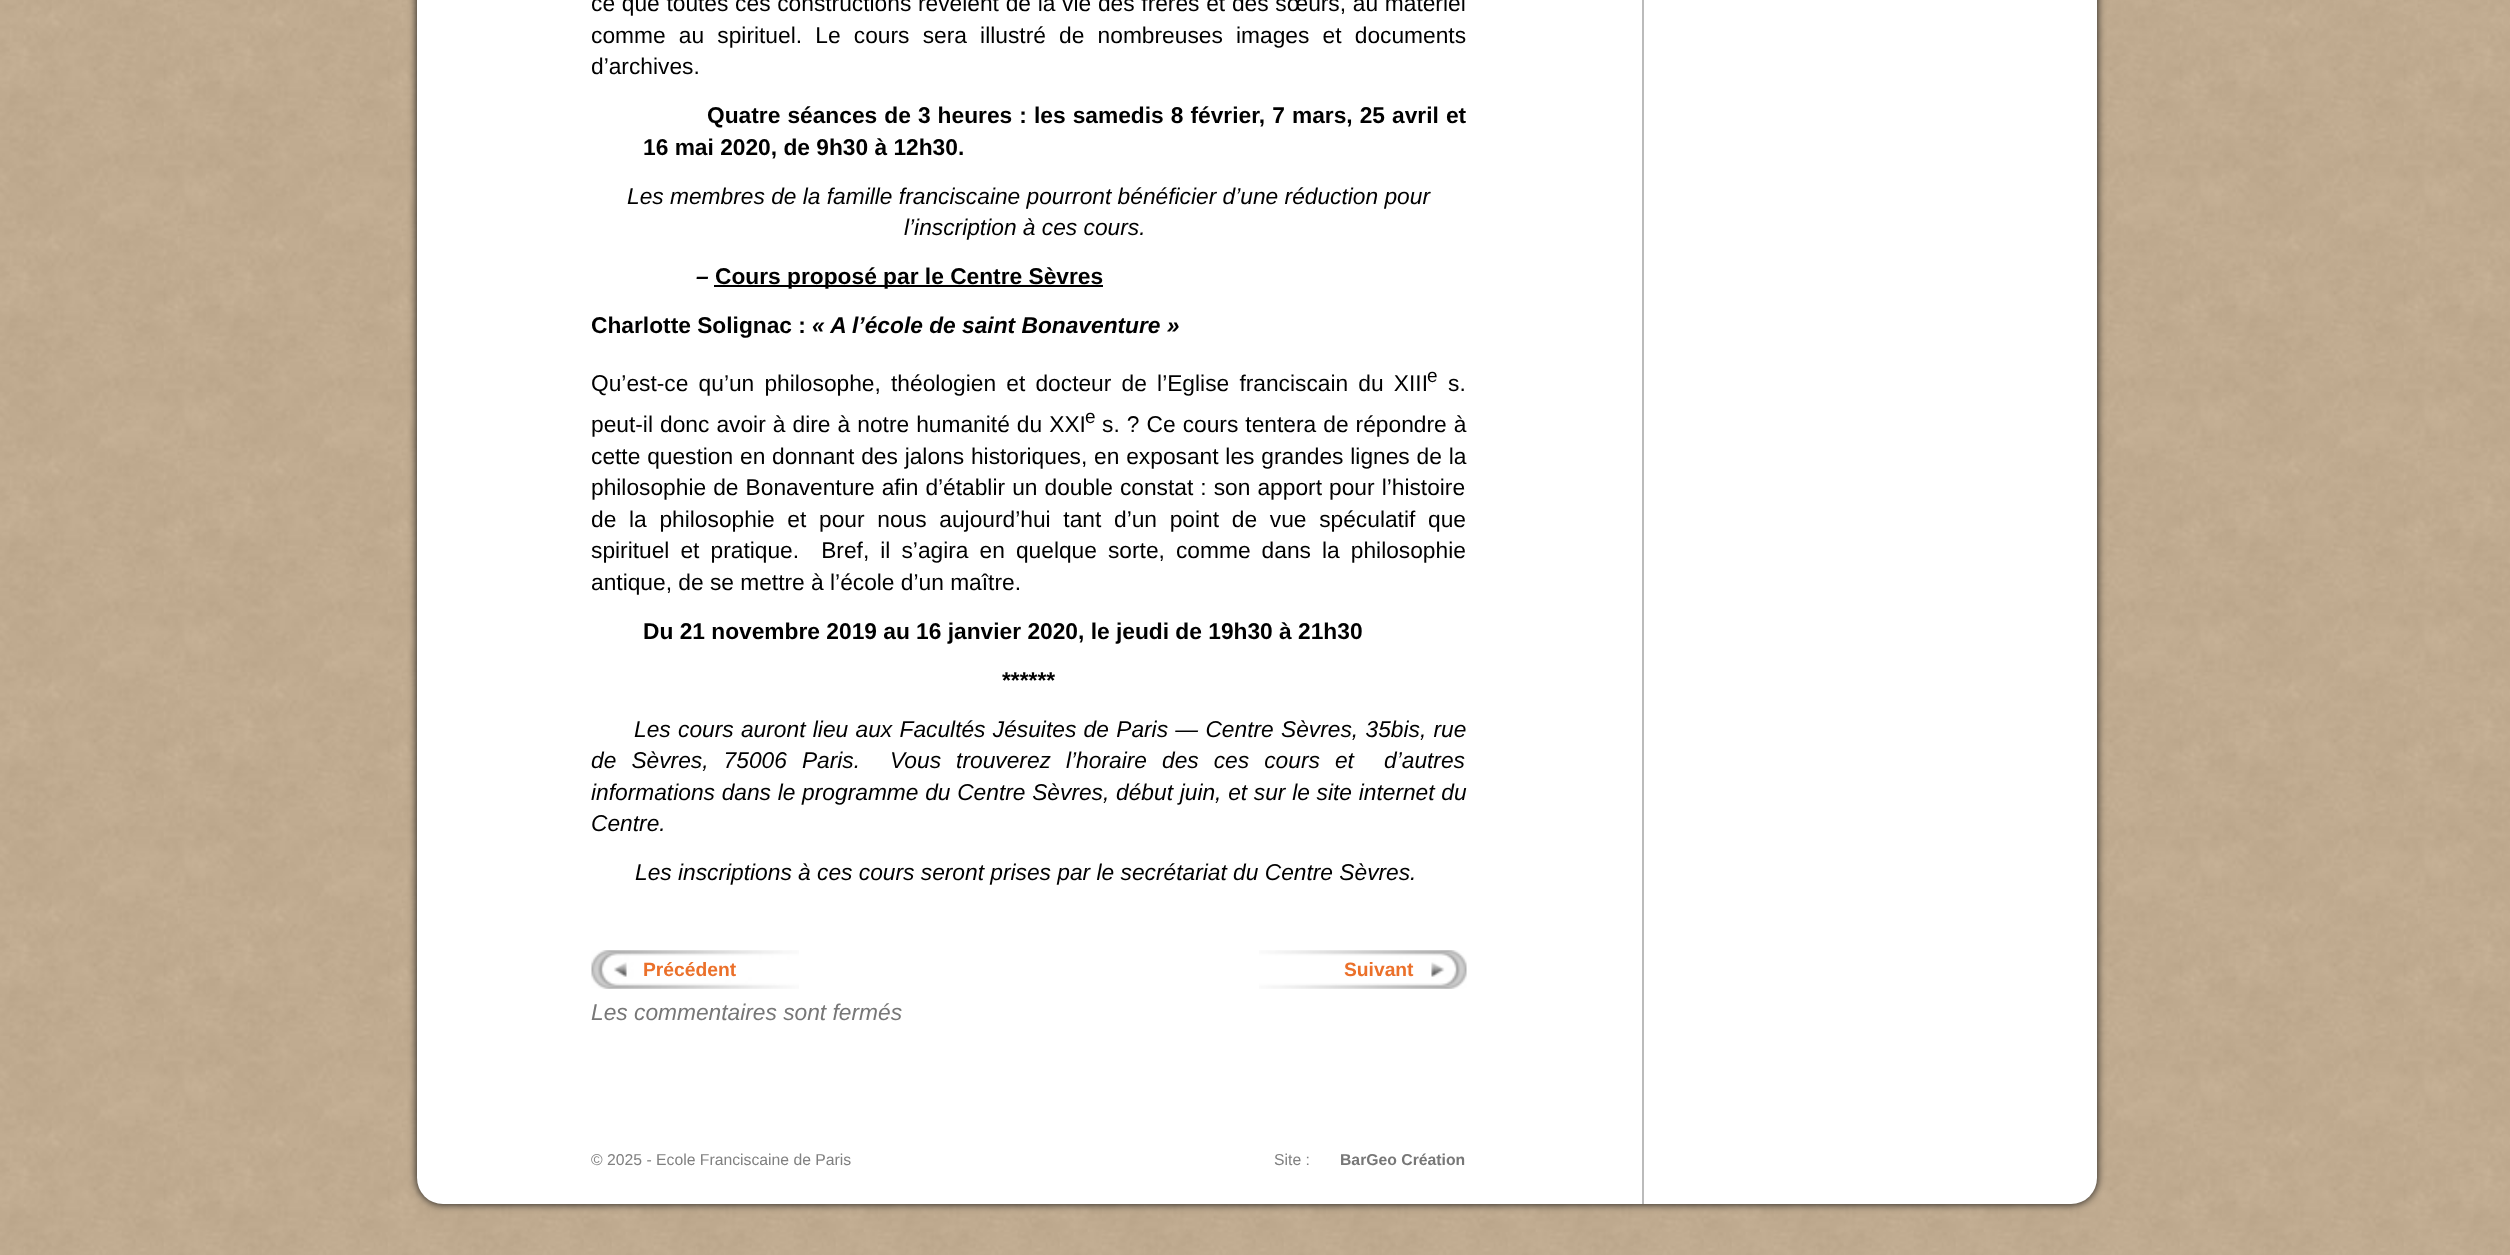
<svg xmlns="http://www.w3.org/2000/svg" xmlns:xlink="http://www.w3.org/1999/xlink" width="2510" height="1255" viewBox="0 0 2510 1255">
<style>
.cls-1{font:22.75px Liberation Sans;fill:#000000}
.cls-2{font:bold 22.75px Liberation Sans;fill:#000000}
.cls-3{font:italic 22.75px Liberation Sans;fill:#000000}
.cls-4{font:italic bold 22.75px Liberation Sans;fill:#000000}
.cls-5{font:19px Liberation Sans;fill:#000000}
.cls-6{font:bold 19.25px Liberation Sans;fill:#eb702a}
.cls-7{font:italic 22.75px Liberation Sans;fill:#777777}
.cls-8{font:15.75px Liberation Sans;fill:#808080}
.cls-9{font:bold 15.75px Liberation Sans;fill:#777777}
</style>
<rect width="100%" height="100%" fill="#ffffff"/>
<image xlink:href="image0.png" x="0" y="0" width="2510" height="1255"/>
<rect fill="#111111" filter="blur(4.5px)" x="417" y="-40" width="1680" height="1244" rx="26"/>
<rect fill="#ffffff" x="417" y="-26" width="1680" height="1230" rx="26"/>
<rect fill="#bbbbbb" x="1642" y="0" width="2" height="1204"/>
<rect fill="#000000" x="714" y="285" width="389" height="2"/>
<image xlink:href="image1.png" x="591" y="950" width="208" height="39"/>
<image xlink:href="image2.png" x="1259" y="950" width="208" height="39"/>
<text class="cls-1"><tspan x="591" y="11" word-spacing="0.4">ce que toutes ces constructions révèlent de la vie des frères et des sœurs, au matériel</tspan><tspan x="591" y="43" word-spacing="6.9">comme au spirituel. Le cours sera illustré de nombreuses images et documents</tspan><tspan x="591" y="74">d’archives.</tspan></text>
<text class="cls-2" x="707" y="123" word-spacing="0.75">Quatre séances de 3 heures : les samedis 8 février, 7 mars, 25 avril et</text>
<text class="cls-2" x="643" y="155">16 mai 2020, de 9h30 à 12h30.</text>
<text class="cls-3" x="627" y="204">Les membres de la famille franciscaine pourront bénéficier d’une réduction pour</text>
<text class="cls-3" x="904" y="235">l’inscription à ces cours.</text>
<text class="cls-4" x="696" y="284">–</text>
<text class="cls-2" x="715" y="284">Cours proposé par le Centre Sèvres</text>
<text class="cls-2" x="591" y="333">Charlotte Solignac :</text>
<text class="cls-4" x="812" y="333">« A l’école de saint Bonaventure »</text>
<text class="cls-1" x="591" y="391" word-spacing="3.9">Qu’est-ce qu’un philosophe, théologien et docteur de l’Eglise franciscain du XIII</text>
<text class="cls-5" x="1427" y="382">e</text>
<text class="cls-1" x="1448" y="391">s.</text>
<text class="cls-1" x="591" y="432" word-spacing="0.75">peut-il donc avoir à dire à notre humanité du XXI</text>
<text class="cls-5" x="1085" y="423">e</text>
<text class="cls-1" x="1102" y="432" word-spacing="0.75">s. ? Ce cours tentera de répondre à</text>
<text class="cls-1" xml:space="preserve"><tspan x="591" y="464" word-spacing="0.5">cette question en donnant des jalons historiques, en exposant les grandes lignes de la</tspan><tspan x="591" y="495" word-spacing="0.75">philosophie de Bonaventure afin d’établir un double constat : son apport pour l’histoire</tspan><tspan x="591" y="527" word-spacing="6.4">de la philosophie et pour nous aujourd’hui tant d’un point de vue spéculatif que</tspan><tspan x="591" y="558" word-spacing="4.75">spirituel et pratique.  Bref, il s’agira en quelque sorte, comme dans la philosophie</tspan><tspan x="591" y="590">antique, de se mettre à l’école d’un maître.</tspan></text>
<text class="cls-2" x="643" y="639">Du 21 novembre 2019 au 16 janvier 2020, le jeudi de 19h30 à 21h30</text>
<text class="cls-2" x="1002" y="688">******</text>
<text class="cls-3" x="634" y="737" word-spacing="1">Les cours auront lieu aux Facultés Jésuites de Paris — Centre Sèvres, 35bis, rue</text>
<text class="cls-3" x="591" y="768" word-spacing="8.75">de Sèvres, 75006 Paris.</text>
<text class="cls-3" xml:space="preserve" x="890" y="768" word-spacing="8.75">Vous trouverez l’horaire des ces cours et  d’autres</text>
<text class="cls-3"><tspan x="591" y="800" word-spacing="0.4">informations dans le programme du Centre Sèvres, début juin, et sur le site internet du</tspan><tspan x="591" y="831">Centre.</tspan></text>
<text class="cls-3" x="635" y="880">Les inscriptions à ces cours seront prises par le secrétariat du Centre Sèvres.</text>
<text class="cls-6" x="643" y="976">Précédent</text>
<text class="cls-6" x="1344" y="976">Suivant</text>
<text class="cls-7" x="591" y="1020">Les commentaires sont fermés</text>
<text class="cls-8" x="591" y="1165">© 2025 - Ecole Franciscaine de Paris</text>
<text class="cls-8" x="1274" y="1165">Site :</text>
<text class="cls-9" x="1340" y="1165">BarGeo Création</text>
</svg>
